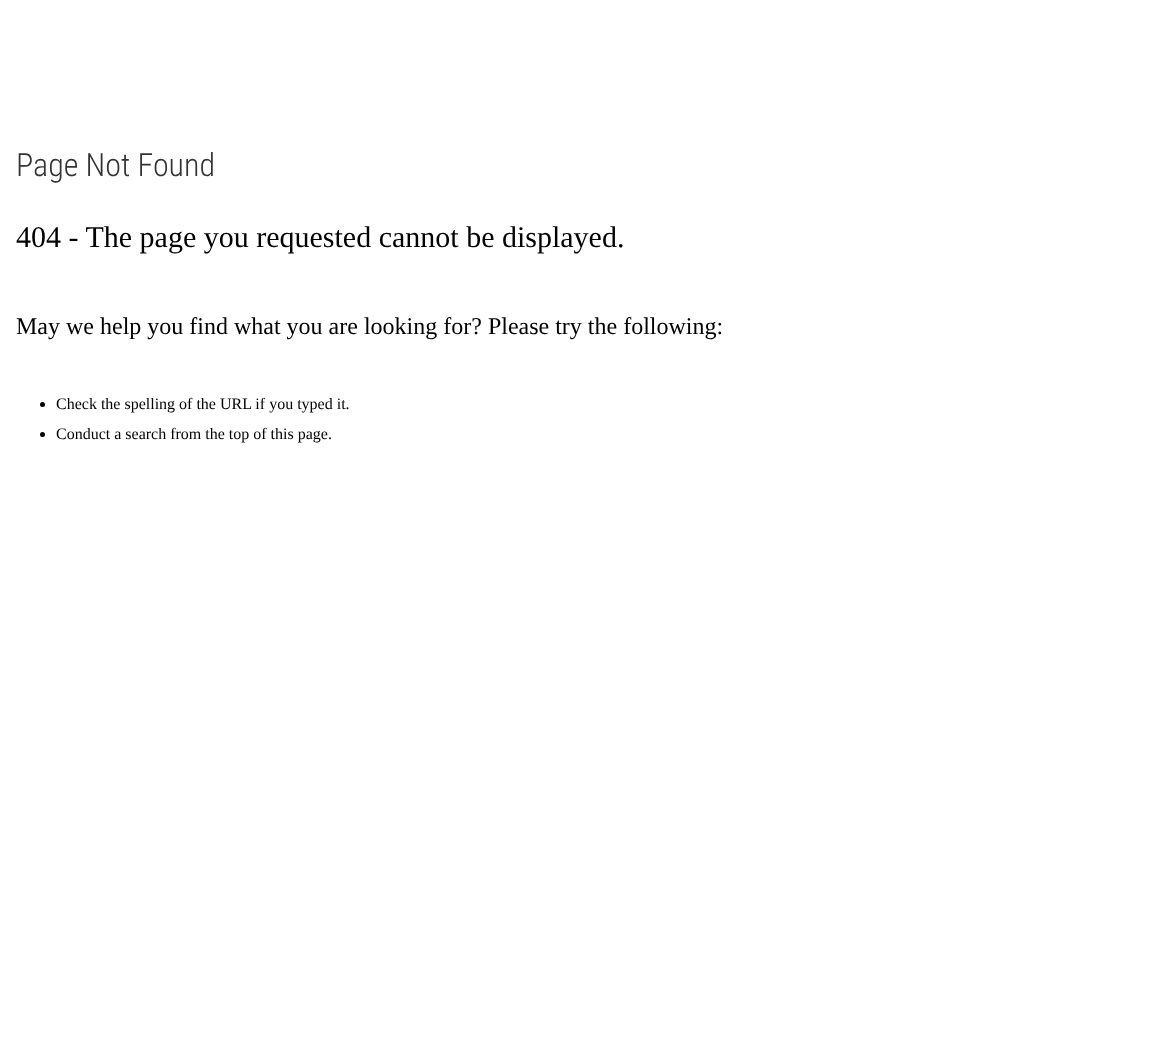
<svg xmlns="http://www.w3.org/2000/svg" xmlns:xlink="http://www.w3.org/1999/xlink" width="1156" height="1042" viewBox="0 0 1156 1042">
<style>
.cls-1{font:300 32px Roboto Condensed;fill:#333333}
.cls-2{font:30px Liberation Serif;fill:#000000}
.cls-3{font:24px Liberation Serif;fill:#000000}
.cls-4{font:16px Liberation Serif;fill:#000000}
</style>
<rect width="100%" height="100%" fill="#ffffff"/>
<circle fill="#000000" cx="42.5" cy="404.5" r="2.5"/>
<circle fill="#000000" cx="42.5" cy="434.5" r="2.5"/>
<text class="cls-1" x="16" y="176">Page Not Found</text>
<text class="cls-2" x="16" y="247">404 - The page you requested cannot be displayed.</text>
<text class="cls-3" x="16" y="334">May we help you find what you are looking for? Please try the following:</text>
<text class="cls-4"><tspan x="56" y="409">Check the spelling of the URL if you typed it.</tspan><tspan x="56" y="439">Conduct a search from the top of this page.</tspan></text>
</svg>
